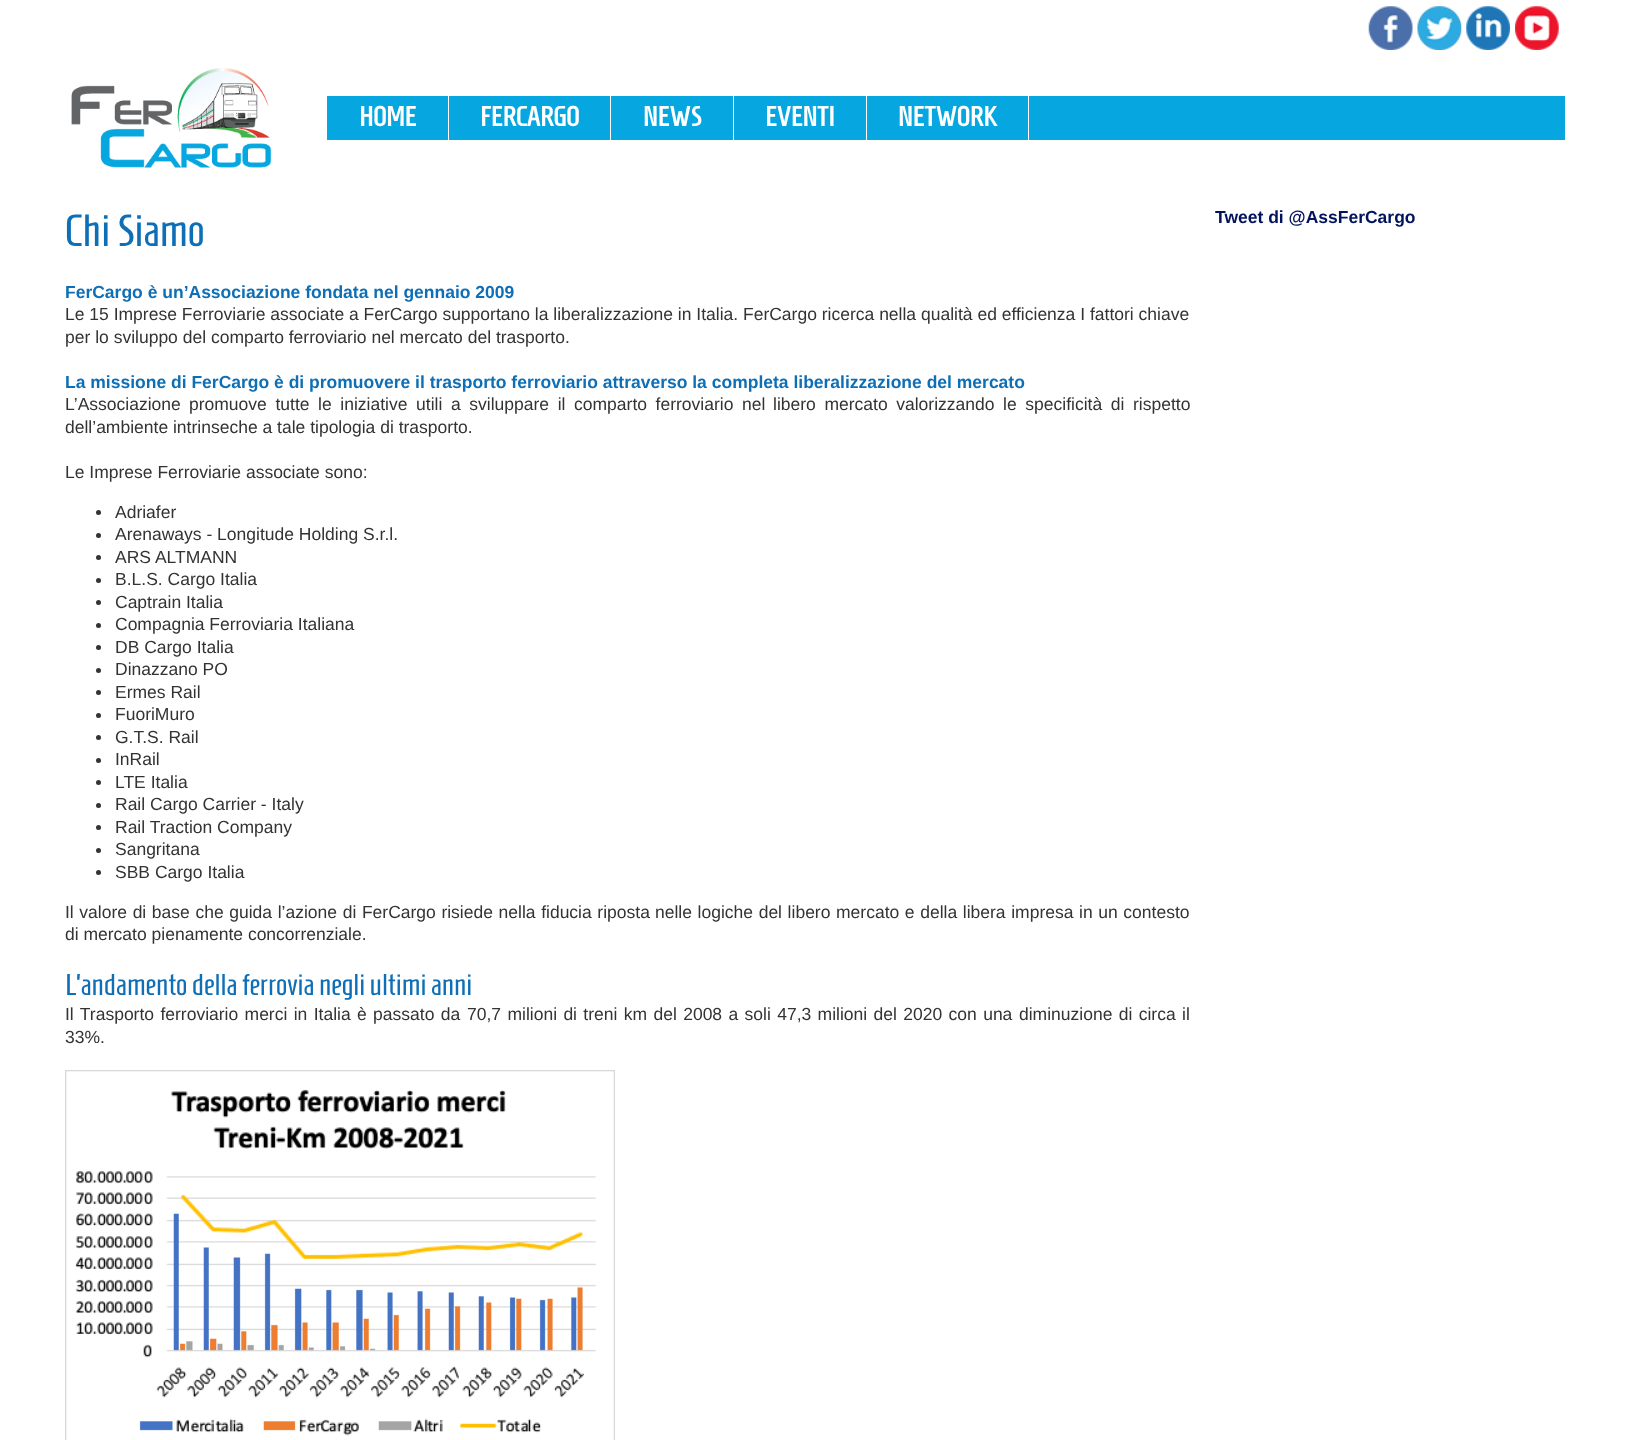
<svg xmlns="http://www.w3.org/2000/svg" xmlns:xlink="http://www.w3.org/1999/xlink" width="1629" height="1440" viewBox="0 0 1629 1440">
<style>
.cls-1{font:bold 27.5px Homenaje;fill:#ffffff}
.cls-2{font:45px Homenaje;fill:#0e6fb6}
.cls-3{font:bold 17.5px Liberation Sans;fill:#0e6fb6}
.cls-4{font:17.5px Liberation Sans;fill:#333333}
.cls-5{font:30px Homenaje;fill:#0e6fb6}
.cls-6{font:bold 17.5px Liberation Sans;fill:#01135d}
</style>
<rect width="100%" height="100%" fill="#ffffff"/>
<image xlink:href="image0.png" x="1368" y="6" width="45" height="44"/>
<image xlink:href="image1.png" x="1417" y="6" width="45" height="44"/>
<image xlink:href="image2.png" x="1466" y="6" width="44" height="44"/>
<image xlink:href="image3.png" x="1515" y="6" width="44" height="44"/>
<image xlink:href="image4.png" x="71" y="68" width="201" height="100"/>
<rect fill="#06a7e1" x="327" y="96" width="1238" height="44"/>
<rect fill="#ffffff" x="448" y="94" width="1" height="47"/>
<rect fill="#ffffff" x="610" y="94" width="1" height="47"/>
<rect fill="#ffffff" x="733" y="94" width="1" height="47"/>
<rect fill="#ffffff" x="866" y="94" width="1" height="47"/>
<rect fill="#ffffff" x="1028" y="94" width="1" height="47"/>
<circle fill="#333333" cx="98.5" cy="512.5" r="2.5"/>
<circle fill="#333333" cx="98.5" cy="535.5" r="2.5"/>
<circle fill="#333333" cx="98.5" cy="557.5" r="2.5"/>
<circle fill="#333333" cx="98.5" cy="580.5" r="2.5"/>
<circle fill="#333333" cx="98.5" cy="602.5" r="2.5"/>
<circle fill="#333333" cx="98.5" cy="625.5" r="2.5"/>
<circle fill="#333333" cx="98.5" cy="647.5" r="2.5"/>
<circle fill="#333333" cx="98.5" cy="670.5" r="2.5"/>
<circle fill="#333333" cx="98.5" cy="692.5" r="2.5"/>
<circle fill="#333333" cx="98.5" cy="715.5" r="2.5"/>
<circle fill="#333333" cx="98.5" cy="737.5" r="2.5"/>
<circle fill="#333333" cx="98.5" cy="760.5" r="2.5"/>
<circle fill="#333333" cx="98.5" cy="782.5" r="2.5"/>
<circle fill="#333333" cx="98.5" cy="805.5" r="2.5"/>
<circle fill="#333333" cx="98.5" cy="827.5" r="2.5"/>
<circle fill="#333333" cx="98.5" cy="850.5" r="2.5"/>
<circle fill="#333333" cx="98.5" cy="872.5" r="2.5"/>
<image xlink:href="image5.png" x="65" y="1070" width="550" height="370"/>
<text class="cls-1" x="359" y="126">HOME</text>
<text class="cls-1" x="480" y="126">FERCARGO</text>
<text class="cls-1" x="643" y="126">NEWS</text>
<text class="cls-1" x="765" y="126">EVENTI</text>
<text class="cls-1" x="898" y="126">NETWORK</text>
<text class="cls-2" x="65" y="246">Chi Siamo</text>
<text class="cls-3" x="65" y="298">FerCargo è un’Associazione fondata nel gennaio 2009</text>
<text class="cls-4"><tspan x="65" y="320">Le 15 Imprese Ferroviarie associate a FerCargo supportano la liberalizzazione in Italia. FerCargo ricerca nella qualità ed efficienza I fattori chiave</tspan><tspan x="65" y="343">per lo sviluppo del comparto ferroviario nel mercato del trasporto.</tspan></text>
<text class="cls-3" x="65" y="388">La missione di FerCargo è di promuovere il trasporto ferroviario attraverso la completa liberalizzazione del mercato</text>
<text class="cls-4" x="65" y="410">L’Associazione</text>
<text class="cls-4" x="189" y="410" word-spacing="3.75">promuove tutte le iniziative utili a sviluppare il comparto ferroviario nel</text>
<text class="cls-4" x="773" y="410" word-spacing="3.75">libero mercato valorizzando le specificità di rispetto</text>
<text class="cls-4" x="65" y="433">dell’ambiente intrinseche a tale tipologia di trasporto.</text>
<text class="cls-4" x="65" y="478">Le Imprese Ferroviarie associate sono:</text>
<text class="cls-4"><tspan x="115" y="518">Adriafer</tspan><tspan x="115" y="540">Arenaways - Longitude Holding S.r.l.</tspan><tspan x="115" y="563">ARS ALTMANN</tspan><tspan x="115" y="585">B.L.S. Cargo Italia</tspan><tspan x="115" y="608">Captrain Italia</tspan><tspan x="115" y="630">Compagnia Ferroviaria Italiana</tspan><tspan x="115" y="653">DB Cargo Italia</tspan><tspan x="115" y="675">Dinazzano PO</tspan><tspan x="115" y="698">Ermes Rail</tspan><tspan x="115" y="720">FuoriMuro</tspan><tspan x="115" y="743">G.T.S. Rail</tspan><tspan x="115" y="765">InRail</tspan><tspan x="115" y="788">LTE Italia</tspan><tspan x="115" y="810">Rail Cargo Carrier - Italy</tspan><tspan x="115" y="833">Rail Traction Company</tspan><tspan x="115" y="855">Sangritana</tspan><tspan x="115" y="878">SBB Cargo Italia</tspan></text>
<text class="cls-4" x="65" y="918" word-spacing="0.75">Il valore di base che guida l’azione di FerCargo risiede nella fiducia riposta</text>
<text class="cls-4" x="655" y="918" word-spacing="0.75">nelle logiche del libero mercato e della libera impresa in un contesto</text>
<text class="cls-4" x="65" y="940">di mercato pienamente concorrenziale.</text>
<text class="cls-5" x="65" y="995">L’andamento della ferrovia negli ultimi anni</text>
<text class="cls-4" x="65" y="1020" word-spacing="1.5">Il Trasporto ferroviario merci in Italia è passato da</text>
<text class="cls-4" x="467" y="1020" word-spacing="1.5">70,7 milioni di treni km del 2008 a soli 47,3 milioni del 2020 con una</text>
<text class="cls-4" x="1019" y="1020" word-spacing="1.5">diminuzione di circa il</text>
<text class="cls-4" x="65" y="1043">33%.</text>
<text class="cls-6" x="1215" y="223">Tweet di @AssFerCargo</text>
</svg>
